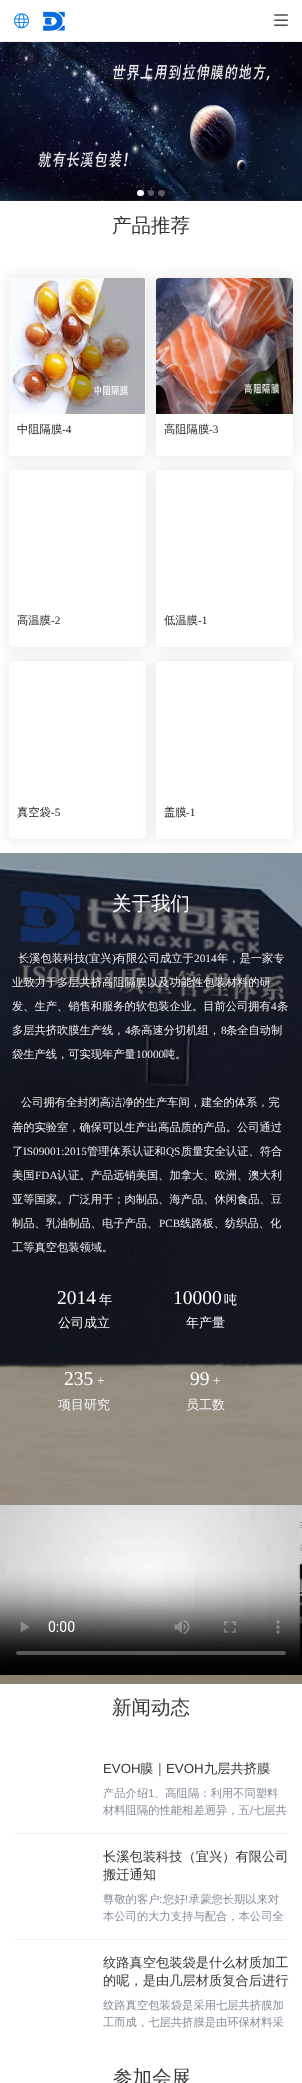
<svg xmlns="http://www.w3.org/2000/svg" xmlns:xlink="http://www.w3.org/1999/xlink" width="302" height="2083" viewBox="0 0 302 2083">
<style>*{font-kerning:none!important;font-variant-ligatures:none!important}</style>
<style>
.cls-1{font:15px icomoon;fill:#1f87e8}
.cls-2{font:14px icomoon;fill:#4d4d4d}
.cls-3{font:500 19.5px WenQuanYi Zen Hei;fill:#353535}
.cls-4{font:500 11.3px WenQuanYi Zen Hei;fill:#222222}
.cls-5{font:11.3px Liberation Serif;fill:#222222}
.cls-6{font:500 19.5px WenQuanYi Zen Hei;fill:#ffffff}
.cls-7{font:500 11.25px WenQuanYi Zen Hei;fill:#ededed}
.cls-8{font:11.25px Liberation Serif;fill:#ededed}
.cls-9{font:19.5px Liberation Serif;fill:#ffffff}
.cls-10{font:500 13.25px WenQuanYi Zen Hei;fill:#ffffff}
.cls-11{font:500 13px WenQuanYi Zen Hei;fill:#f3f3f3}
.cls-12{font:13.25px Liberation Serif;fill:#ffffff}
.cls-13{font:13.25px Liberation Sans;fill:#353535}
.cls-14{font:500 13.25px WenQuanYi Zen Hei;fill:#353535}
.cls-15{font:500 11.3px WenQuanYi Zen Hei;fill:#848e98}
.cls-16{font:11.3px Liberation Sans;fill:#848e98}
</style>
<defs>
<clipPath id="clip1"><path d="M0 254H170V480H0ZM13 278H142C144 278 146 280 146 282V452C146 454 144 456 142 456H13C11 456 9 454 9 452V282C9 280 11 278 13 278Z" clip-rule="evenodd"/></clipPath>
</defs>
<rect width="100%" height="100%" fill="#ffffff"/>
<rect fill="#eeeeee" x="0" y="41" width="302" height="1"/>
<image xlink:href="image0.png" x="43" y="11" width="22" height="20"/>
<image xlink:href="image2.png" x="0" y="200" width="302" height="1484"/>
<image xlink:href="image1.png" x="0" y="42" width="302" height="159"/>
<rect fill="#ffffff" x="137" y="190" width="7" height="6" rx="3"/>
<circle fill="#ababab" fill-opacity="0.5" cx="151" cy="193" r="3"/>
<rect fill="#ababab" fill-opacity="0.5" x="158" y="190" width="7" height="6" rx="3"/>
<rect fill="#ffffff" x="0" y="201" width="302" height="652"/>
<g clip-path="url(#clip1)">
<rect fill="#000000" fill-opacity="0.08" filter="blur(7px)" x="7" y="276" width="141" height="182" rx="6"/>
</g>
<rect fill="#000000" fill-opacity="0.08" filter="blur(7px)" x="154" y="276" width="141" height="182" rx="6"/>
<image xlink:href="image3.png" x="9" y="278" width="136" height="136"/>
<rect fill="#ffffff" x="156" y="278" width="137" height="178" rx="4"/>
<image xlink:href="image4.png" x="156" y="278" width="137" height="136"/>
<rect fill="#000000" fill-opacity="0.08" filter="blur(7px)" x="7" y="468" width="141" height="181" rx="6"/>
<rect fill="#ffffff" x="9" y="470" width="137" height="177" rx="4"/>
<rect fill="#000000" fill-opacity="0.08" filter="blur(7px)" x="154" y="468" width="141" height="181" rx="6"/>
<rect fill="#ffffff" x="156" y="470" width="137" height="177" rx="4"/>
<rect fill="#000000" fill-opacity="0.08" filter="blur(7px)" x="7" y="659" width="141" height="182" rx="6"/>
<rect fill="#ffffff" x="9" y="661" width="137" height="178" rx="4"/>
<rect fill="#000000" fill-opacity="0.08" filter="blur(7px)" x="154" y="659" width="141" height="182" rx="6"/>
<rect fill="#ffffff" x="156" y="661" width="137" height="178" rx="4"/>
<image xlink:href="image5.png" x="0" y="1505" width="302" height="170"/>
<rect fill="#eeeeee" x="14" y="1833" width="274" height="1"/>
<rect fill="#eeeeee" x="14" y="1939" width="274" height="1"/>
<text class="cls-1" x="14" y="27">򰊉</text>
<text class="cls-2" x="274" y="26">򰌲</text>
<text class="cls-3" x="112" y="232">产品推荐</text>
<text class="cls-4" x="17" y="433">中阻隔膜</text>
<text class="cls-5" x="62" y="433">-4</text>
<text class="cls-4" x="164" y="433">高阻隔膜</text>
<text class="cls-5" x="209" y="433">-3</text>
<text class="cls-4" x="17" y="624">高温膜</text>
<text class="cls-5" x="51" y="624">-2</text>
<text class="cls-4" x="164" y="624">低温膜</text>
<text class="cls-5" x="198" y="624">-1</text>
<text class="cls-4" x="17" y="816">真空袋</text>
<text class="cls-5" x="51" y="816">-5</text>
<text class="cls-4" x="164" y="816">盖膜</text>
<text class="cls-5" x="186" y="816">-1</text>
<text class="cls-6" x="112" y="910">关于我们</text>
<text class="cls-7" x="18" y="962">长溪包装科技</text>
<text class="cls-8" x="85" y="962">(</text>
<text class="cls-7" x="89" y="962">宜兴</text>
<text class="cls-8" x="112" y="962">)</text>
<text class="cls-7" x="115" y="962">有限公司成立于</text>
<text class="cls-8" x="194" y="962">2014</text>
<text class="cls-7" x="217" y="962">年，是一家专</text>
<text class="cls-7" x="12" y="986">业致力于多层共挤高阻隔膜以及功能性包装材料的研</text>
<text class="cls-7" x="12" y="1010">发、生产、销售和服务的软包装企业。目前公司拥有</text>
<text class="cls-8" x="271" y="1010">4</text>
<text class="cls-7" x="277" y="1010">条</text>
<text class="cls-7" x="12" y="1034">多层共挤吹膜生产线，</text>
<text class="cls-8" x="125" y="1034">4</text>
<text class="cls-7" x="130" y="1034">条高速分切机组，</text>
<text class="cls-8" x="221" y="1034">8</text>
<text class="cls-7" x="226" y="1034">条全自动制</text>
<text class="cls-7" x="12" y="1058">袋生产线，可实现年产量</text>
<text class="cls-8" x="136" y="1058">10000</text>
<text class="cls-7" x="164" y="1058">吨。</text>
<text class="cls-7" x="21" y="1106">公司拥有全封闭高洁净的生产车间，建全的体系，完</text>
<text class="cls-7" x="12" y="1131">善的实验室，确保可以生产出高品质的产品。公司通过</text>
<text class="cls-7" x="12" y="1155">了</text>
<text class="cls-8" x="23" y="1155">IS09001:2015</text>
<text class="cls-7" x="87" y="1155">管理体系认证和</text>
<text class="cls-8" x="166" y="1155">QS</text>
<text class="cls-7" x="181" y="1155">质量安全认证、符合</text>
<text class="cls-7" x="12" y="1179">美国</text>
<text class="cls-8" x="35" y="1179">FDA</text>
<text class="cls-7" x="57" y="1179">认证。产品远销美国、加拿大、欧洲、澳大利</text>
<text class="cls-7" x="12" y="1203">亚等国家。广泛用于；肉制品、海产品、休闲食品、豆</text>
<text class="cls-7" x="12" y="1227">制品、乳油制品、电子产品、</text>
<text class="cls-8" x="159" y="1227">PCB</text>
<text class="cls-7" x="180" y="1227">线路板、纺织品、化</text>
<text class="cls-7" x="12" y="1251">工等真空包装领域。</text>
<text class="cls-9" x="57" y="1304">2014</text>
<text class="cls-10" x="99" y="1304">年</text>
<text class="cls-9" x="173" y="1304">10000</text>
<text class="cls-10" x="224" y="1304">吨</text>
<text class="cls-11" x="58" y="1327">公司成立</text>
<text class="cls-11" x="186" y="1327">年产量</text>
<text class="cls-9" x="64" y="1385">235</text>
<text class="cls-12" x="97" y="1385">+</text>
<text class="cls-9" x="190" y="1385">99</text>
<text class="cls-12" x="213" y="1385">+</text>
<text class="cls-11" x="58" y="1409">项目研究</text>
<text class="cls-11" x="186" y="1409">员工数</text>
<text class="cls-3" x="112" y="1714">新闻动态</text>
<text class="cls-13" x="103" y="1773">EVOH</text>
<text class="cls-14" x="140" y="1773">膜｜</text>
<text class="cls-13" x="166" y="1773">EVOH</text>
<text class="cls-14" x="204" y="1773">九层共挤膜</text>
<text class="cls-15" x="103" y="1797">产品介绍</text>
<text class="cls-16" x="148" y="1797">1</text>
<text class="cls-15" x="154" y="1797">、高阻隔：利用不同塑料</text>
<text class="cls-15" x="103" y="1814">材料阻隔的性能相差迥异，五</text>
<text class="cls-16" x="250" y="1814">/</text>
<text class="cls-15" x="253" y="1814">七层共</text>
<text class="cls-14"><tspan x="103" y="1861">长溪包装科技（宜兴）有限公司</tspan><tspan x="103" y="1879">搬迁通知</tspan></text>
<text class="cls-15" x="103" y="1903">尊敬的客户 您好 承蒙您长期以来对</text>
<text class="cls-16" x="159" y="1903">:</text>
<text class="cls-16" x="185" y="1903">!</text>
<text class="cls-15" x="103" y="1920">本公司的大力支持与配合，本公司全</text>
<text class="cls-14"><tspan x="103" y="1967">纹路真空包装袋是什么材质加工</tspan><tspan x="103" y="1985">的呢，是由几层材质复合后进行</tspan></text>
<text class="cls-15"><tspan x="103" y="2009">纹路真空包装袋是采用七层共挤膜加</tspan><tspan x="103" y="2026">工而成，七层共挤膜是由环保材料采</tspan></text>
<text class="cls-3" x="113" y="2084">参加会展</text>
</svg>
